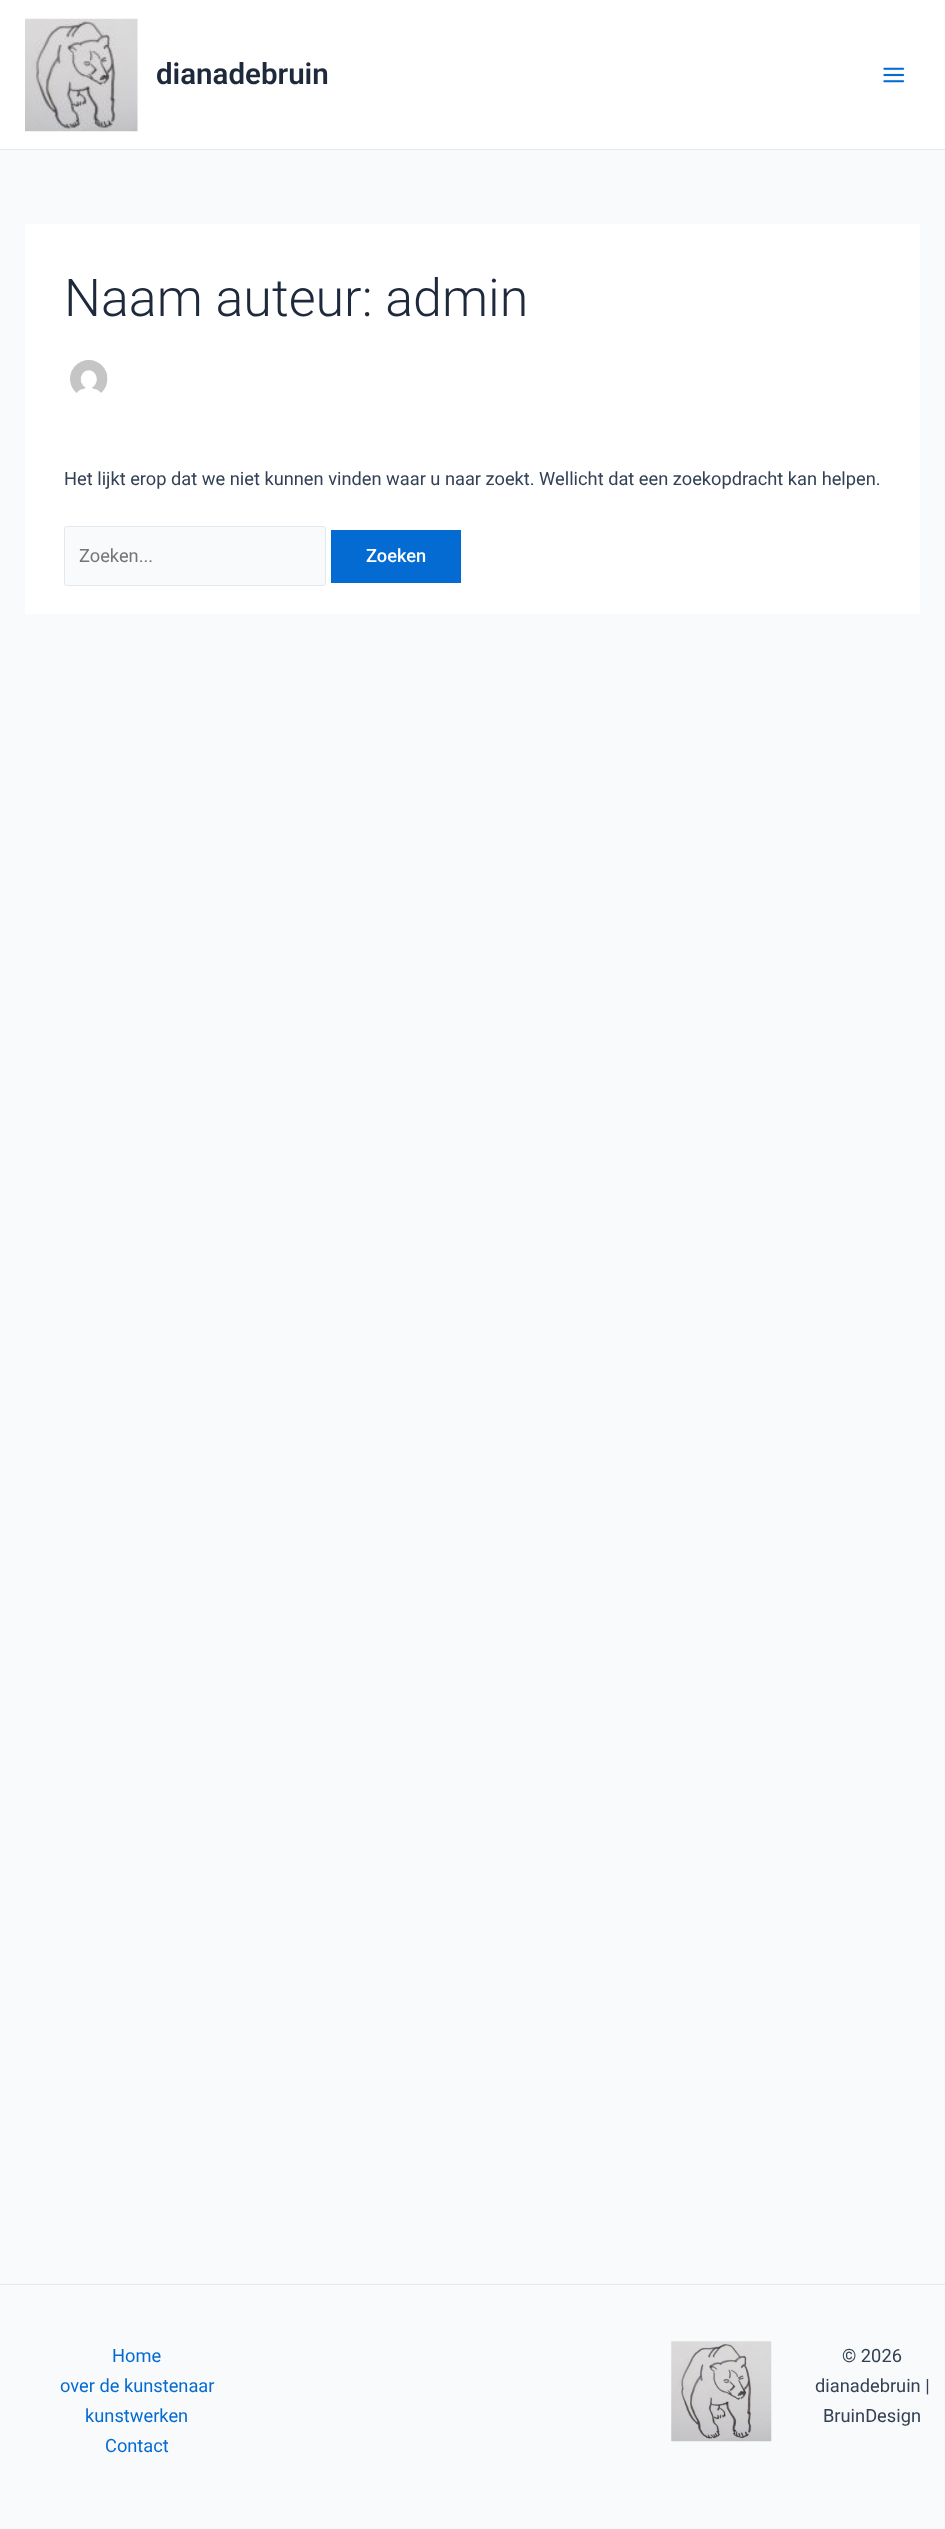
<svg xmlns="http://www.w3.org/2000/svg" xmlns:xlink="http://www.w3.org/1999/xlink" width="945" height="2529" viewBox="0 0 945 2529">
<style>
.cls-1{font:600 29.5px Roboto;fill:#1e293b}
.cls-2{font:300 52px Roboto;fill:#1e293b}
.cls-3{font:18.25px Roboto;fill:#334155}
.cls-4{font:18.25px Roboto;fill:#757575}
.cls-5{font:500 18.25px Roboto;fill:#ffffff}
.cls-6{font:18.25px Roboto;fill:#046bd2}
</style>
<rect width="100%" height="100%" fill="#f9fafb"/>
<rect fill="#ffffff" x="0" y="0" width="945" height="149"/>
<rect fill="#e2e8f0" x="0" y="149" width="945" height="1"/>
<image xlink:href="image0.png" x="25" y="18" width="113" height="114"/>
<image xlink:href="image1.png" x="883" y="67" width="22" height="16"/>
<rect fill="#ffffff" x="25" y="224" width="895" height="390"/>
<image xlink:href="image2.png" x="70" y="360" width="38" height="33"/>
<rect fill="#f9fafb" stroke="#e2e8f0" x="64.5" y="526.5" width="261" height="59" rx="2"/>
<rect fill="#046bd2" x="331" y="530" width="130" height="53"/>
<rect fill="#e2e8f0" x="0" y="2284" width="945" height="1"/>
<image xlink:href="image3.png" x="671" y="2341" width="101" height="101"/>
<text class="cls-1" x="156" y="84">dianadebruin</text>
<text class="cls-2" x="64" y="316">Naam auteur: admin</text>
<text class="cls-3" x="64" y="485">Het lijkt erop dat we niet kunnen vinden waar u naar zoekt. Wellicht dat een zoekopdracht kan helpen.</text>
<text class="cls-4" x="79" y="562">Zoeken...</text>
<text class="cls-5" x="366" y="562">Zoeken</text>
<text class="cls-6" x="112" y="2362">Home</text>
<text class="cls-6" x="60" y="2392">over de kunstenaar</text>
<text class="cls-6" x="85" y="2422">kunstwerken</text>
<text class="cls-6" x="105" y="2452">Contact</text>
<text class="cls-3" x="842" y="2362">© 2026</text>
<text class="cls-3" x="815" y="2392">dianadebruin |</text>
<text class="cls-3" x="823" y="2422">BruinDesign</text>
</svg>
